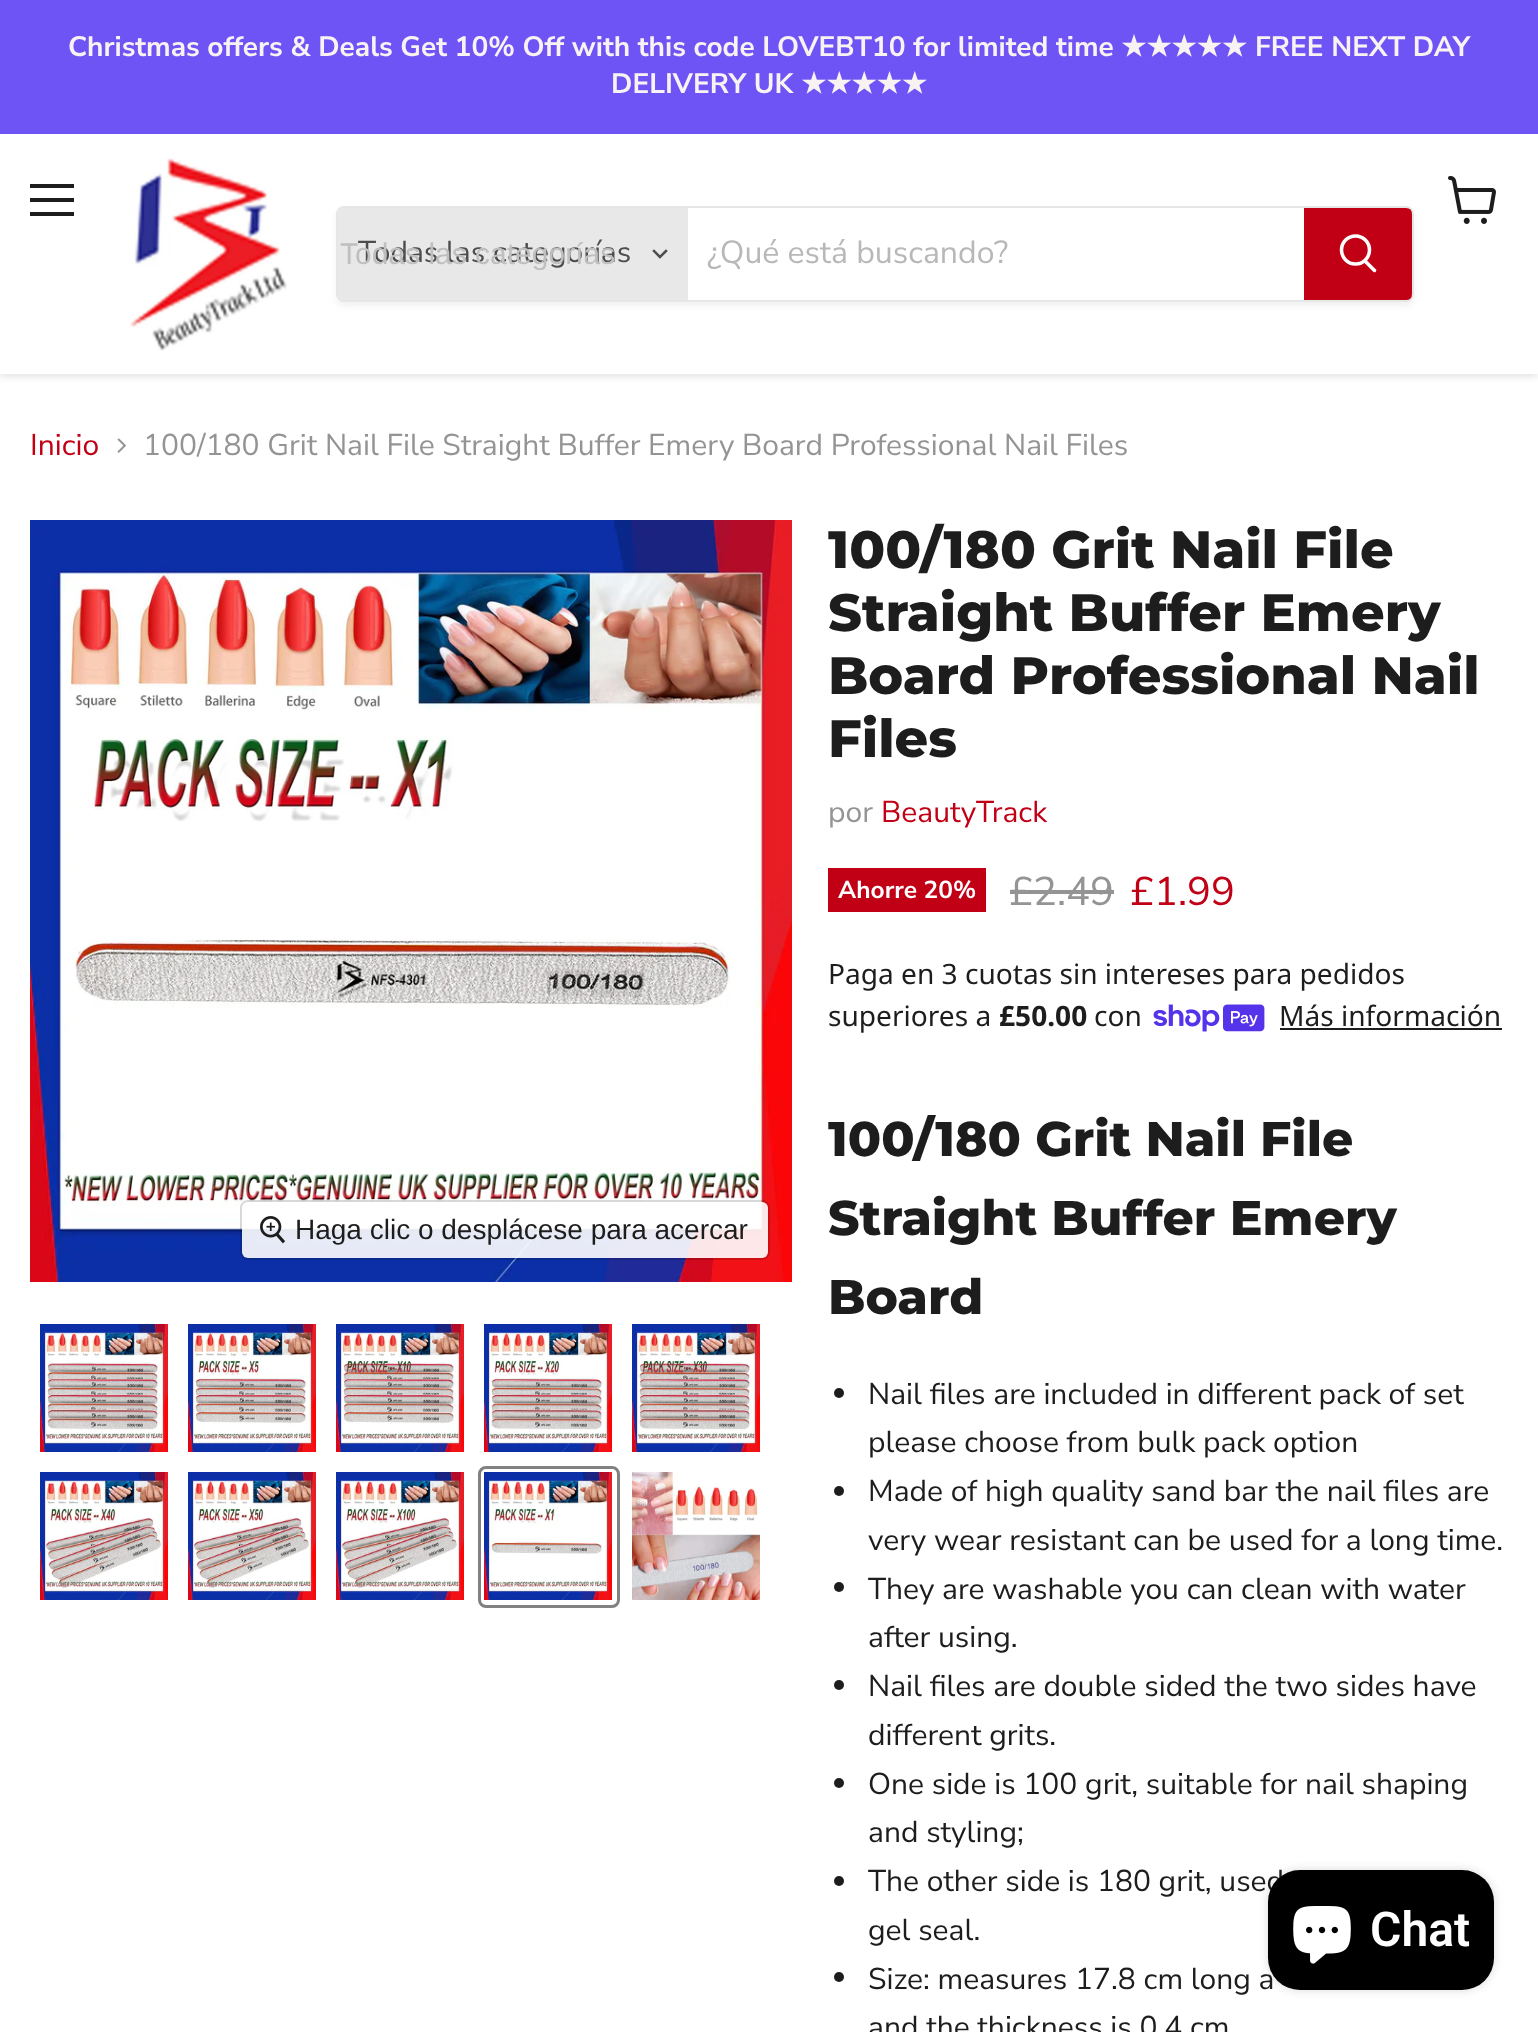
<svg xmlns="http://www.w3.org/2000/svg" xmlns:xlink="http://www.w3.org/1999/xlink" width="1538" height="2032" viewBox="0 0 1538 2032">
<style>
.cls-1{font:bold 28.1px Nunito Sans;fill:#f9f2f2}
.cls-2{font:bold 28.1px DejaVu Sans;fill:#f9f2f2}
.cls-3{font:30px Nunito Sans;fill:#4d4d4d}
.cls-4{font:30px Liberation Sans;fill:#bfbfbf}
.cls-5{font:32px Nunito Sans;fill:#b8b8b8}
.cls-6{font:30px Nunito Sans;fill:#c10015}
.cls-7{font:30px Nunito Sans;fill:#949494}
.cls-8{font:28px Liberation Sans;fill:#1d1d1d}
.cls-9{font:800 52.5px Montserrat;fill:#1d1d1d}
.cls-10{font:bold 24.5px Nunito Sans;fill:#ffffff}
.cls-11{font:40px Nunito Sans;fill:#949494}
.cls-12{font:40px Nunito Sans;fill:#c10015}
.cls-13{font:28.1px Noto Sans;fill:#1d1d1d}
.cls-14{font:bold 28.1px Noto Sans;fill:#1d1d1d}
.cls-15{font:800 48.75px Montserrat;fill:#1d1d1d}
.cls-16{font:30px Nunito Sans;fill:#1d1d1d}
.cls-17{font:600 48px Roboto;fill:#ffffff}
</style>
<defs>
<clipPath id="clip1"><rect x="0" y="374" width="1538" height="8"/></clipPath>
<clipPath id="clip2"><path d="M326 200H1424V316H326ZM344 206H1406C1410.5 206 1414 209.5 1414 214V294C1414 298.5 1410.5 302 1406 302H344C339.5 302 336 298.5 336 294V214C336 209.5 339.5 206 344 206Z" clip-rule="evenodd"/></clipPath>
<clipPath id="clip3"><rect x="340" y="236" width="346" height="34"/></clipPath>
</defs>
<rect width="100%" height="100%" fill="#ffffff"/>
<g clip-path="url(#clip1)">
<rect fill="#808080" fill-opacity="0.25" filter="blur(4px)" x="0" y="136" width="1538" height="240"/>
</g>
<rect fill="#6e53f5" x="0" y="0" width="1538" height="134"/>
<rect fill="#1d1d1d" x="30" y="184" width="44" height="4"/>
<rect fill="#1d1d1d" x="30" y="198" width="44" height="4"/>
<rect fill="#1d1d1d" x="30" y="212" width="44" height="4"/>
<image xlink:href="image0.png" x="1448" y="176" width="48" height="48"/>
<image xlink:href="image1.png" x="130" y="158" width="157" height="193"/>
<g clip-path="url(#clip2)">
<rect fill="#808080" fill-opacity="0.11" filter="blur(3px)" x="336" y="210" width="1078" height="96" rx="8"/>
</g>
<rect fill="none" stroke="#808080" stroke-opacity="0.2" stroke-width="2" x="337" y="207" width="1076" height="94" rx="7"/>
<path fill="#e8e8e8" d="M344 208H688V300H344C340.5 300 338 297.5 338 294V214C338 210.5 340.5 208 344 208Z"/>
<path fill="none" stroke="#4d4d4d" stroke-width="2.5" stroke-linecap="square" d="M660 257L666 251M660 257L654 251"/>
<path fill="#c10015" stroke="#c10015" stroke-width="2" d="M1305 209H1406C1409 209 1411 211 1411 214V294C1411 297 1409 299 1406 299H1305Z"/>
<path fill="none" stroke="#ffffff" stroke-width="3.5" stroke-linecap="round" d="M1374.5 270.5L1365 261"/>
<circle fill="none" stroke="#ffffff" stroke-width="3.5" cx="1355.5" cy="250" r="14"/>
<image xlink:href="image2.png" x="117" y="438" width="9" height="15"/>
<image xlink:href="image3.png" x="30" y="520" width="762" height="762"/>
<rect fill="none" stroke="#000000" stroke-opacity="0.15" stroke-width="2" x="241" y="1201" width="528" height="58" rx="7"/>
<rect fill="#ffffff" fill-opacity="0.9" x="242" y="1202" width="526" height="56" rx="6"/>
<image xlink:href="image4.png" x="260" y="1216" width="26" height="28"/>
<image xlink:href="image5.png" x="40" y="1324" width="128" height="128"/>
<image xlink:href="image6.png" x="188" y="1324" width="128" height="128"/>
<image xlink:href="image7.png" x="336" y="1324" width="128" height="128"/>
<image xlink:href="image8.png" x="484" y="1324" width="128" height="128"/>
<image xlink:href="image9.png" x="632" y="1324" width="128" height="128"/>
<image xlink:href="image10.png" x="40" y="1472" width="128" height="128"/>
<image xlink:href="image11.png" x="188" y="1472" width="128" height="128"/>
<image xlink:href="image12.png" x="336" y="1472" width="128" height="128"/>
<rect fill="none" stroke="#818181" stroke-width="3" x="479.5" y="1467.5" width="139" height="139" rx="6.5"/>
<image xlink:href="image13.png" x="484" y="1472" width="128" height="128"/>
<image xlink:href="image14.png" x="632" y="1472" width="128" height="128"/>
<rect fill="#c10015" x="828" y="868" width="158" height="44"/>
<rect fill="#949494" x="1010" y="890" width="104" height="4"/>
<image xlink:href="image15.png" x="1153" y="1004" width="112" height="28"/>
<rect fill="#1d1d1d" x="1280" y="1028" width="222" height="2"/>
<circle fill="#1d1d1d" cx="839" cy="1393" r="5"/>
<circle fill="#1d1d1d" cx="839" cy="1491" r="5"/>
<circle fill="#1d1d1d" cx="839" cy="1587" r="5"/>
<circle fill="#1d1d1d" cx="839" cy="1685" r="5"/>
<circle fill="#1d1d1d" cx="839" cy="1783" r="5"/>
<circle fill="#1d1d1d" cx="839" cy="1881" r="5"/>
<circle fill="#1d1d1d" cx="839" cy="1977" r="5"/>
<rect fill="#000000" fill-opacity="0.15" filter="blur(5px)" x="1268" y="1870" width="226" height="120" rx="32"/>
<text class="cls-1" x="68" y="56">Christmas offers &amp; Deals Get 10% Off with this code LOVEBT10 for limited time</text>
<text class="cls-2" x="1121" y="56">★★★★★</text>
<text class="cls-1" x="1255" y="56">FREE NEXT DAY</text>
<text class="cls-1" x="611" y="93">DELIVERY UK</text>
<text class="cls-2" x="801" y="93">★★★★★</text>
<text class="cls-3" x="358" y="262">Todas las categorías</text>
<g clip-path="url(#clip3)">
<text class="cls-4" x="340" y="264">Todas las categorías</text>
</g>
<text class="cls-5" x="707" y="263">¿Qué está buscando?</text>
<text class="cls-6" x="30" y="455">Inicio</text>
<text class="cls-7" x="143" y="455">100/180 Grit Nail File Straight Buffer Emery Board Professional Nail Files</text>
<text class="cls-8" x="295" y="1239">Haga clic o desplácese para acercar</text>
<text class="cls-9"><tspan x="828" y="568">100/180 Grit Nail File</tspan><tspan x="828" y="631">Straight Buffer Emery</tspan><tspan x="828" y="694">Board Professional Nail</tspan><tspan x="828" y="757">Files</tspan></text>
<text class="cls-7" x="828" y="822">por</text>
<text class="cls-6" x="881" y="822">BeautyTrack</text>
<text class="cls-10" x="838" y="898">Ahorre 20%</text>
<text class="cls-11" x="1009" y="905">£2.49</text>
<text class="cls-12" x="1130" y="905">£1.99</text>
<text class="cls-13"><tspan x="828" y="984">Paga en 3 cuotas sin intereses para pedidos</tspan><tspan x="828" y="1026">superiores a</tspan></text>
<text class="cls-14" x="999" y="1026">£50.00</text>
<text class="cls-13" x="1094" y="1026">con</text>
<text class="cls-13" x="1279" y="1026">Más información</text>
<text class="cls-15"><tspan x="828" y="1156">100/180 Grit Nail File</tspan><tspan x="828" y="1235">Straight Buffer Emery</tspan><tspan x="828" y="1314">Board</tspan></text>
<text class="cls-16"><tspan x="868" y="1404">Nail files are included in different pack of set</tspan><tspan x="868" y="1452">please choose from bulk pack option</tspan><tspan x="868" y="1501">Made of high quality sand bar the nail files are</tspan><tspan x="868" y="1550">very wear resistant can be used for a long time.</tspan><tspan x="868" y="1599">They are washable you can clean with water</tspan><tspan x="868" y="1647">after using.</tspan><tspan x="868" y="1696">Nail files are double sided the two sides have</tspan><tspan x="868" y="1745">different grits.</tspan><tspan x="868" y="1794">One side is 100 grit, suitable for nail shaping</tspan><tspan x="868" y="1842">and styling;</tspan><tspan x="868" y="1891">The other side is 180 grit, used</tspan><tspan x="868" y="1940">gel seal.</tspan><tspan x="868" y="1989">Size: measures 17.8 cm long a</tspan><tspan x="868" y="2037">and the thickness is 0.4 cm</tspan></text>
<rect fill="#000000" x="1268" y="1870" width="226" height="120" rx="32"/>
<image xlink:href="image16.png" x="1293" y="1906" width="58" height="58"/>
<text class="cls-17" x="1370" y="1946">Chat</text>
</svg>
